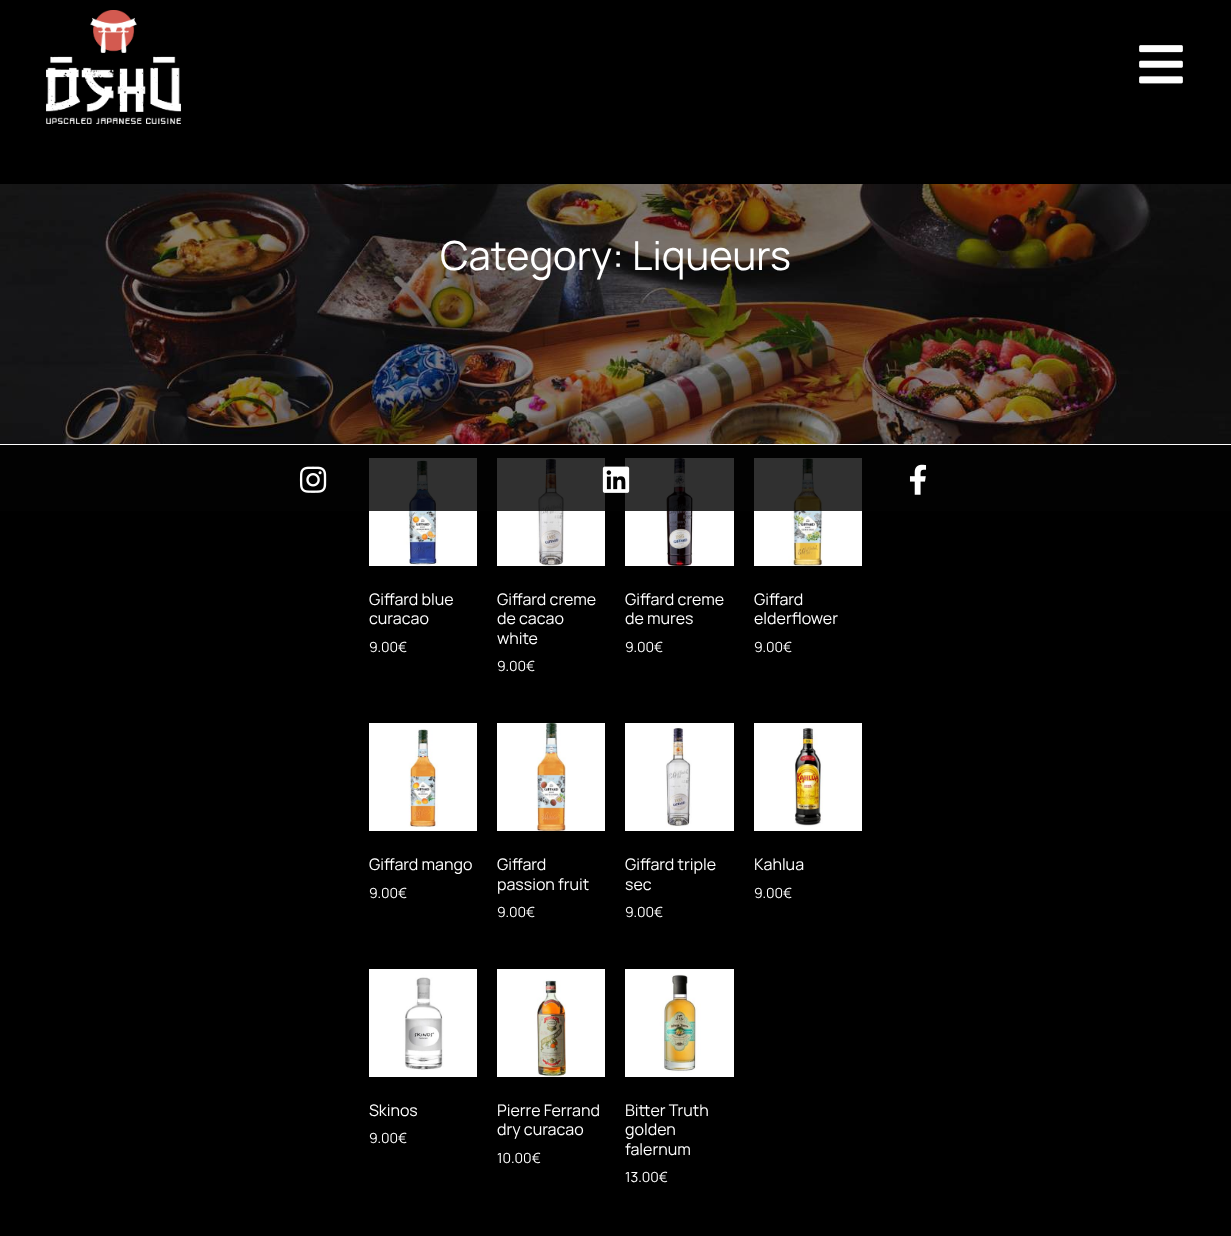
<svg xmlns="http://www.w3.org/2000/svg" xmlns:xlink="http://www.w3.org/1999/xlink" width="1231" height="1236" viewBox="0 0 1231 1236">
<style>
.cls-1{font:40px Manrope;fill:#ffffff}
.cls-2{font:16px Manrope;fill:#ffffff}
.cls-3{font:14px Manrope;fill:#ffffff}
</style>
<rect width="100%" height="100%" fill="#000000"/>
<image xlink:href="image0.png" x="46" y="10" width="135" height="114"/>
<image xlink:href="image1.png" x="1139" y="45" width="44" height="39"/>
<image xlink:href="image2.png" x="0" y="184" width="1231" height="260"/>
<rect fill="#0b0b0b" x="0" y="445" width="1231" height="66"/>
<image xlink:href="image3.png" x="369" y="458" width="108" height="108"/>
<image xlink:href="image4.png" x="497" y="458" width="108" height="108"/>
<image xlink:href="image5.png" x="625" y="458" width="109" height="108"/>
<image xlink:href="image6.png" x="754" y="458" width="108" height="108"/>
<image xlink:href="image7.png" x="369" y="723" width="108" height="108"/>
<image xlink:href="image8.png" x="497" y="723" width="108" height="108"/>
<image xlink:href="image9.png" x="625" y="723" width="109" height="108"/>
<image xlink:href="image10.png" x="754" y="723" width="108" height="108"/>
<image xlink:href="image11.png" x="369" y="969" width="108" height="108"/>
<image xlink:href="image12.png" x="497" y="969" width="108" height="108"/>
<image xlink:href="image13.png" x="625" y="969" width="109" height="108"/>
<rect fill="#000000" fill-opacity="0.81" x="0" y="445" width="1231" height="66"/>
<rect fill="#ffffff" x="0" y="444" width="1231" height="1"/>
<image xlink:href="image14.png" x="299" y="466" width="28" height="27"/>
<image xlink:href="image15.png" x="602" y="466" width="28" height="27"/>
<image xlink:href="image16.png" x="909" y="464" width="18" height="31"/>
<text class="cls-1" x="440" y="270">Category: Liqueurs</text>
<text class="cls-2"><tspan x="369" y="605">Giffard blue</tspan><tspan x="369" y="624">curacao</tspan></text>
<text class="cls-3" x="369" y="652">9.00€</text>
<text class="cls-2"><tspan x="497" y="605">Giffard creme</tspan><tspan x="497" y="624">de cacao</tspan><tspan x="497" y="644">white</tspan></text>
<text class="cls-3" x="497" y="671">9.00€</text>
<text class="cls-2"><tspan x="625" y="605">Giffard creme</tspan><tspan x="625" y="624">de mures</tspan></text>
<text class="cls-3" x="625" y="652">9.00€</text>
<text class="cls-2"><tspan x="754" y="605">Giffard</tspan><tspan x="754" y="624">elderflower</tspan></text>
<text class="cls-3" x="754" y="652">9.00€</text>
<text class="cls-2" x="369" y="870">Giffard mango</text>
<text class="cls-3" x="369" y="898">9.00€</text>
<text class="cls-2"><tspan x="497" y="870">Giffard</tspan><tspan x="497" y="890">passion fruit</tspan></text>
<text class="cls-3" x="497" y="917">9.00€</text>
<text class="cls-2"><tspan x="625" y="870">Giffard triple</tspan><tspan x="625" y="890">sec</tspan></text>
<text class="cls-3" x="625" y="917">9.00€</text>
<text class="cls-2" x="754" y="870">Kahlua</text>
<text class="cls-3" x="754" y="898">9.00€</text>
<text class="cls-2" x="369" y="1116">Skinos</text>
<text class="cls-3" x="369" y="1143">9.00€</text>
<text class="cls-2"><tspan x="497" y="1116">Pierre Ferrand</tspan><tspan x="497" y="1135">dry curacao</tspan></text>
<text class="cls-3" x="497" y="1163">10.00€</text>
<text class="cls-2"><tspan x="625" y="1116">Bitter Truth</tspan><tspan x="625" y="1135">golden</tspan><tspan x="625" y="1155">falernum</tspan></text>
<text class="cls-3" x="625" y="1182">13.00€</text>
</svg>
